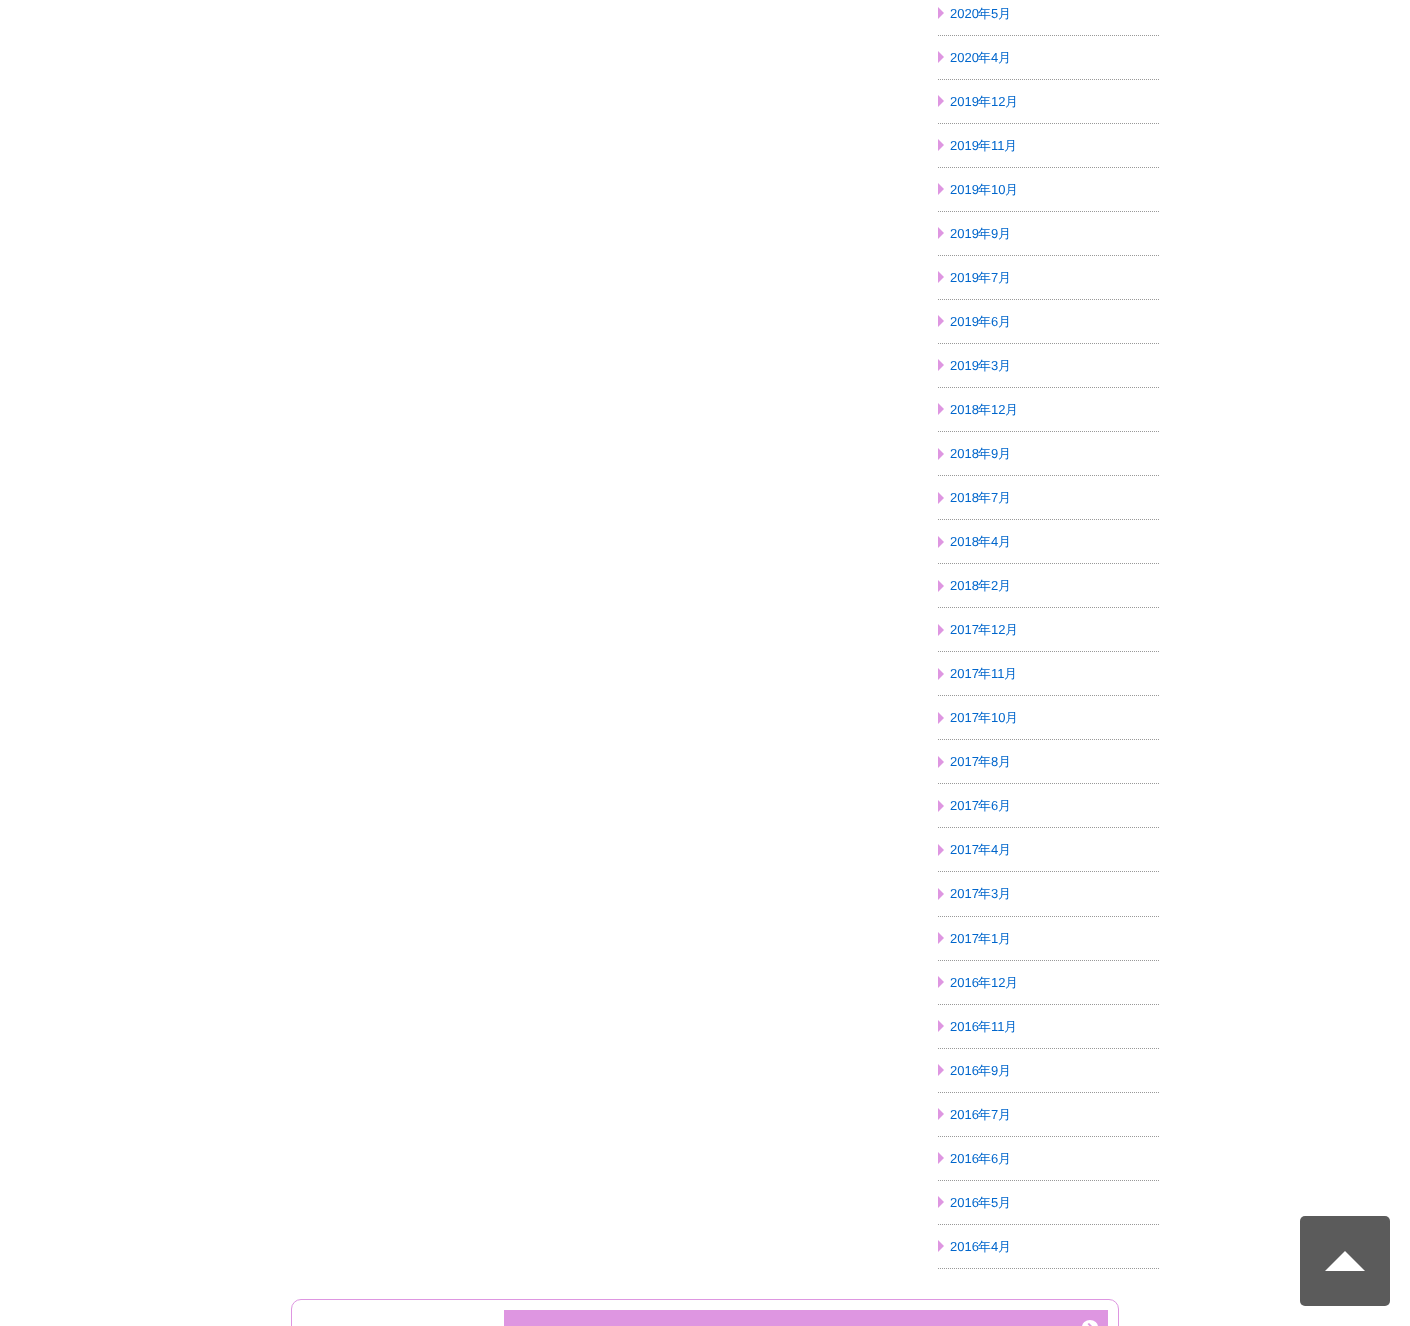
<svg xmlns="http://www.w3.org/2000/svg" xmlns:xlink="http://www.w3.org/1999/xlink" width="1410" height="1326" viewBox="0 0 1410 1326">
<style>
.cls-1{font:13px Liberation Sans;fill:#0066cc}
.cls-2{font:500 13px WenQuanYi Zen Hei;fill:#0066cc}
</style>
<rect width="100%" height="100%" fill="#ffffff"/>
<path fill="none" stroke="#999999" stroke-dasharray="1 1" d="M938 1268.5H1159"/>
<path fill="#de96e1" d="M938 19V7L944 13Z"/>
<path fill="none" stroke="#999999" stroke-dasharray="1 1" d="M938 35.5H1159"/>
<path fill="#de96e1" d="M938 63V51L944 57Z"/>
<path fill="none" stroke="#999999" stroke-dasharray="1 1" d="M938 79.5H1159"/>
<path fill="#de96e1" d="M938 107V95L944 101Z"/>
<path fill="none" stroke="#999999" stroke-dasharray="1 1" d="M938 123.5H1159"/>
<path fill="#de96e1" d="M938 151V139L944 145Z"/>
<path fill="none" stroke="#999999" stroke-dasharray="1 1" d="M938 167.5H1159"/>
<path fill="#de96e1" d="M938 195V183L944 189Z"/>
<path fill="none" stroke="#999999" stroke-dasharray="1 1" d="M938 211.5H1159"/>
<path fill="#de96e1" d="M938 239V227L944 233Z"/>
<path fill="none" stroke="#999999" stroke-dasharray="1 1" d="M938 255.5H1159"/>
<path fill="#de96e1" d="M938 283V271L944 277Z"/>
<path fill="none" stroke="#999999" stroke-dasharray="1 1" d="M938 299.5H1159"/>
<path fill="#de96e1" d="M938 327V315L944 321Z"/>
<path fill="none" stroke="#999999" stroke-dasharray="1 1" d="M938 343.5H1159"/>
<path fill="#de96e1" d="M938 371V359L944 365Z"/>
<path fill="none" stroke="#999999" stroke-dasharray="1 1" d="M938 387.5H1159"/>
<path fill="#de96e1" d="M938 415V403L944 409Z"/>
<path fill="none" stroke="#999999" stroke-dasharray="1 1" d="M938 431.5H1159"/>
<path fill="#de96e1" d="M938 460V448L944 454Z"/>
<path fill="none" stroke="#999999" stroke-dasharray="1 1" d="M938 475.5H1159"/>
<path fill="#de96e1" d="M938 504V492L944 498Z"/>
<path fill="none" stroke="#999999" stroke-dasharray="1 1" d="M938 519.5H1159"/>
<path fill="#de96e1" d="M938 548V536L944 542Z"/>
<path fill="none" stroke="#999999" stroke-dasharray="1 1" d="M938 563.5H1159"/>
<path fill="#de96e1" d="M938 592V580L944 586Z"/>
<path fill="none" stroke="#999999" stroke-dasharray="1 1" d="M938 607.5H1159"/>
<path fill="#de96e1" d="M938 636V624L944 630Z"/>
<path fill="none" stroke="#999999" stroke-dasharray="1 1" d="M938 651.5H1159"/>
<path fill="#de96e1" d="M938 680V668L944 674Z"/>
<path fill="none" stroke="#999999" stroke-dasharray="1 1" d="M938 695.5H1159"/>
<path fill="#de96e1" d="M938 724V712L944 718Z"/>
<path fill="none" stroke="#999999" stroke-dasharray="1 1" d="M938 739.5H1159"/>
<path fill="#de96e1" d="M938 768V756L944 762Z"/>
<path fill="none" stroke="#999999" stroke-dasharray="1 1" d="M938 783.5H1159"/>
<path fill="#de96e1" d="M938 812V800L944 806Z"/>
<path fill="none" stroke="#999999" stroke-dasharray="1 1" d="M938 827.5H1159"/>
<path fill="#de96e1" d="M938 856V844L944 850Z"/>
<path fill="none" stroke="#999999" stroke-dasharray="1 1" d="M938 871.5H1159"/>
<path fill="#de96e1" d="M938 900V888L944 894Z"/>
<path fill="none" stroke="#999999" stroke-dasharray="1 1" d="M938 916.5H1159"/>
<path fill="#de96e1" d="M938 944V932L944 938Z"/>
<path fill="none" stroke="#999999" stroke-dasharray="1 1" d="M938 960.5H1159"/>
<path fill="#de96e1" d="M938 988V976L944 982Z"/>
<path fill="none" stroke="#999999" stroke-dasharray="1 1" d="M938 1004.5H1159"/>
<path fill="#de96e1" d="M938 1032V1020L944 1026Z"/>
<path fill="none" stroke="#999999" stroke-dasharray="1 1" d="M938 1048.5H1159"/>
<path fill="#de96e1" d="M938 1076V1064L944 1070Z"/>
<path fill="none" stroke="#999999" stroke-dasharray="1 1" d="M938 1092.5H1159"/>
<path fill="#de96e1" d="M938 1120V1108L944 1114Z"/>
<path fill="none" stroke="#999999" stroke-dasharray="1 1" d="M938 1136.5H1159"/>
<path fill="#de96e1" d="M938 1164V1152L944 1158Z"/>
<path fill="none" stroke="#999999" stroke-dasharray="1 1" d="M938 1180.5H1159"/>
<path fill="#de96e1" d="M938 1208V1196L944 1202Z"/>
<path fill="none" stroke="#999999" stroke-dasharray="1 1" d="M938 1224.5H1159"/>
<path fill="#de96e1" d="M938 1252V1240L944 1246Z"/>
<rect fill="none" stroke="#de96e1" x="291.5" y="1299.5" width="827" height="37" rx="9.5"/>
<rect fill="#de96e1" x="504" y="1310" width="604" height="16"/>
<rect fill="#ffffff" x="1082" y="1320" width="16" height="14" rx="8"/>
<path fill="#de96e1" d="M1087.5 1324L1089 1323L1094.5 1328.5L1093 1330Z"/>
<rect fill="#5b5b5b" x="1300" y="1216" width="90" height="90" rx="5"/>
<path fill="#ffffff" d="M1365 1271H1325L1345 1251Z"/>
<text class="cls-1" x="950" y="18">2020</text>
<text class="cls-2" x="978" y="18">年</text>
<text class="cls-1" x="991" y="18">5</text>
<text class="cls-2" x="998" y="18">月</text>
<text class="cls-1" x="950" y="62">2020</text>
<text class="cls-2" x="978" y="62">年</text>
<text class="cls-1" x="991" y="62">4</text>
<text class="cls-2" x="998" y="62">月</text>
<text class="cls-1" x="950" y="106">2019</text>
<text class="cls-2" x="978" y="106">年</text>
<text class="cls-1" x="991" y="106">12</text>
<text class="cls-2" x="1005" y="106">月</text>
<text class="cls-1" x="950" y="150">2019</text>
<text class="cls-2" x="978" y="150">年</text>
<text class="cls-1" x="991" y="150">11</text>
<text class="cls-2" x="1004" y="150">月</text>
<text class="cls-1" x="950" y="194">2019</text>
<text class="cls-2" x="978" y="194">年</text>
<text class="cls-1" x="991" y="194">10</text>
<text class="cls-2" x="1005" y="194">月</text>
<text class="cls-1" x="950" y="238">2019</text>
<text class="cls-2" x="978" y="238">年</text>
<text class="cls-1" x="991" y="238">9</text>
<text class="cls-2" x="998" y="238">月</text>
<text class="cls-1" x="950" y="282">2019</text>
<text class="cls-2" x="978" y="282">年</text>
<text class="cls-1" x="991" y="282">7</text>
<text class="cls-2" x="998" y="282">月</text>
<text class="cls-1" x="950" y="326">2019</text>
<text class="cls-2" x="978" y="326">年</text>
<text class="cls-1" x="991" y="326">6</text>
<text class="cls-2" x="998" y="326">月</text>
<text class="cls-1" x="950" y="370">2019</text>
<text class="cls-2" x="978" y="370">年</text>
<text class="cls-1" x="991" y="370">3</text>
<text class="cls-2" x="998" y="370">月</text>
<text class="cls-1" x="950" y="414">2018</text>
<text class="cls-2" x="978" y="414">年</text>
<text class="cls-1" x="991" y="414">12</text>
<text class="cls-2" x="1005" y="414">月</text>
<text class="cls-1" x="950" y="458">2018</text>
<text class="cls-2" x="978" y="458">年</text>
<text class="cls-1" x="991" y="458">9</text>
<text class="cls-2" x="998" y="458">月</text>
<text class="cls-1" x="950" y="502">2018</text>
<text class="cls-2" x="978" y="502">年</text>
<text class="cls-1" x="991" y="502">7</text>
<text class="cls-2" x="998" y="502">月</text>
<text class="cls-1" x="950" y="546">2018</text>
<text class="cls-2" x="978" y="546">年</text>
<text class="cls-1" x="991" y="546">4</text>
<text class="cls-2" x="998" y="546">月</text>
<text class="cls-1" x="950" y="590">2018</text>
<text class="cls-2" x="978" y="590">年</text>
<text class="cls-1" x="991" y="590">2</text>
<text class="cls-2" x="998" y="590">月</text>
<text class="cls-1" x="950" y="634">2017</text>
<text class="cls-2" x="978" y="634">年</text>
<text class="cls-1" x="991" y="634">12</text>
<text class="cls-2" x="1005" y="634">月</text>
<text class="cls-1" x="950" y="678">2017</text>
<text class="cls-2" x="978" y="678">年</text>
<text class="cls-1" x="991" y="678">11</text>
<text class="cls-2" x="1004" y="678">月</text>
<text class="cls-1" x="950" y="722">2017</text>
<text class="cls-2" x="978" y="722">年</text>
<text class="cls-1" x="991" y="722">10</text>
<text class="cls-2" x="1005" y="722">月</text>
<text class="cls-1" x="950" y="766">2017</text>
<text class="cls-2" x="978" y="766">年</text>
<text class="cls-1" x="991" y="766">8</text>
<text class="cls-2" x="998" y="766">月</text>
<text class="cls-1" x="950" y="810">2017</text>
<text class="cls-2" x="978" y="810">年</text>
<text class="cls-1" x="991" y="810">6</text>
<text class="cls-2" x="998" y="810">月</text>
<text class="cls-1" x="950" y="854">2017</text>
<text class="cls-2" x="978" y="854">年</text>
<text class="cls-1" x="991" y="854">4</text>
<text class="cls-2" x="998" y="854">月</text>
<text class="cls-1" x="950" y="898">2017</text>
<text class="cls-2" x="978" y="898">年</text>
<text class="cls-1" x="991" y="898">3</text>
<text class="cls-2" x="998" y="898">月</text>
<text class="cls-1" x="950" y="943">2017</text>
<text class="cls-2" x="978" y="943">年</text>
<text class="cls-1" x="991" y="943">1</text>
<text class="cls-2" x="998" y="943">月</text>
<text class="cls-1" x="950" y="987">2016</text>
<text class="cls-2" x="978" y="987">年</text>
<text class="cls-1" x="991" y="987">12</text>
<text class="cls-2" x="1005" y="987">月</text>
<text class="cls-1" x="950" y="1031">2016</text>
<text class="cls-2" x="978" y="1031">年</text>
<text class="cls-1" x="991" y="1031">11</text>
<text class="cls-2" x="1004" y="1031">月</text>
<text class="cls-1" x="950" y="1075">2016</text>
<text class="cls-2" x="978" y="1075">年</text>
<text class="cls-1" x="991" y="1075">9</text>
<text class="cls-2" x="998" y="1075">月</text>
<text class="cls-1" x="950" y="1119">2016</text>
<text class="cls-2" x="978" y="1119">年</text>
<text class="cls-1" x="991" y="1119">7</text>
<text class="cls-2" x="998" y="1119">月</text>
<text class="cls-1" x="950" y="1163">2016</text>
<text class="cls-2" x="978" y="1163">年</text>
<text class="cls-1" x="991" y="1163">6</text>
<text class="cls-2" x="998" y="1163">月</text>
<text class="cls-1" x="950" y="1207">2016</text>
<text class="cls-2" x="978" y="1207">年</text>
<text class="cls-1" x="991" y="1207">5</text>
<text class="cls-2" x="998" y="1207">月</text>
<text class="cls-1" x="950" y="1251">2016</text>
<text class="cls-2" x="978" y="1251">年</text>
<text class="cls-1" x="991" y="1251">4</text>
<text class="cls-2" x="998" y="1251">月</text>
</svg>
